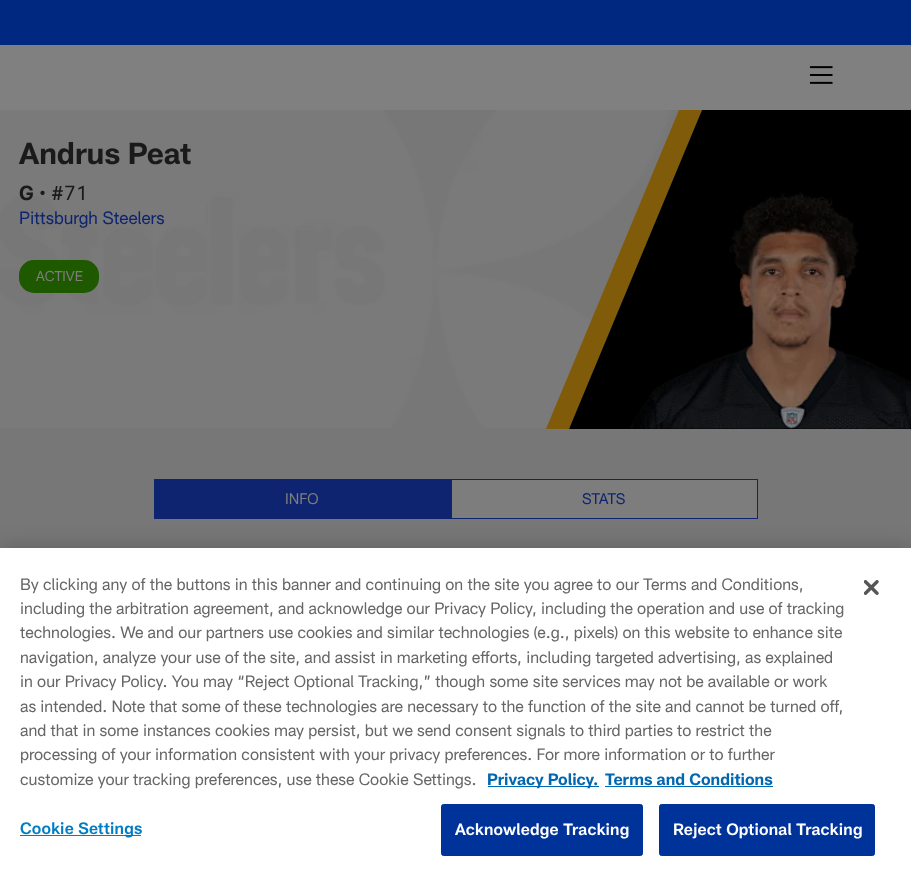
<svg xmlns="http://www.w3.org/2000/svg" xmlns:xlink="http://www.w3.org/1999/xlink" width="911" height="880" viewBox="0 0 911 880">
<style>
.cls-1{font:bold 30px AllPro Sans;fill:#1a1a1a}
.cls-2{font:bold 20px AllPro Sans;fill:#1a1a1a}
.cls-3{font:20px AllPro Sans;fill:#1a1a1a}
.cls-4{font:17.5px AllPro Sans;fill:#0e2470}
.cls-5{font:14px AllPro Sans;fill:#7d7d7d}
.cls-6{font:15px AllPro Sans;fill:#7d7d7d}
.cls-7{font:15px AllPro Sans;fill:#0e2470}
.cls-8{font:16.25px AllPro Sans;fill:#666666}
.cls-9{font:bold 16.25px AllPro Sans;fill:#0067b1}
.cls-10{font:600 16.25px AllPro Sans;letter-spacing:0.2px;fill:#007dc3}
.cls-11{font:600 16.25px AllPro Sans;letter-spacing:0.2px;fill:#ffffff}
</style>
<rect width="100%" height="100%" fill="#777777"/>
<rect fill="#808080" x="0" y="45" width="911" height="65"/>
<rect fill="#002880" x="0" y="0" width="911" height="45"/>
<image xlink:href="image0.png" x="809" y="66" width="24" height="18"/>
<image xlink:href="image1.png" x="0" y="110" width="702" height="318"/>
<path fill="#805b09" d="M702 110L569 429H546L679 110Z"/>
<path fill="#000000" d="M569 429L702 110H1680V429Z"/>
<image xlink:href="image2.png" x="629" y="191" width="282" height="238"/>
<rect fill="#1e5900" x="19" y="260" width="80" height="33" rx="15"/>
<rect fill="#0e2470" x="154" y="479" width="297" height="40"/>
<rect fill="#7d7d7d" stroke="#0e2470" x="451.5" y="479.5" width="306" height="39"/>
<rect fill="#000000" fill-opacity="0.2" filter="blur(11px)" x="0" y="548" width="911" height="332"/>
<rect fill="#ffffff" x="0" y="548" width="911" height="332"/>
<rect fill="#0067b1" x="488" y="786" width="111" height="1"/>
<rect fill="#0067b1" x="605" y="786" width="168" height="1"/>
<rect fill="#007dc3" x="20" y="835" width="121" height="1"/>
<rect fill="#003399" stroke="#003399" x="441.5" y="804.5" width="201" height="51" rx="2"/>
<rect fill="#003399" stroke="#003399" x="659.5" y="804.5" width="215" height="51" rx="2"/>
<image xlink:href="image3.png" x="864" y="580" width="15" height="15"/>
<text class="cls-1" x="19" y="164">Andrus Peat</text>
<text class="cls-2" x="19" y="200">G</text>
<text class="cls-3" x="39" y="200">• #71</text>
<text class="cls-4" x="19" y="224">Pittsburgh Steelers</text>
<text class="cls-5" x="36" y="281">ACTIVE</text>
<text class="cls-6" x="285" y="504">INFO</text>
<text class="cls-7" x="582" y="504">STATS</text>
<text class="cls-8"><tspan x="20" y="590">By clicking any of the buttons in this banner and continuing on the site you agree to our Terms and Conditions,</tspan><tspan x="20" y="614">including the arbitration agreement, and acknowledge our Privacy Policy, including the operation and use of tracking</tspan><tspan x="20" y="638">technologies. We and our partners use cookies and similar technologies (e.g., pixels) on this website to enhance site</tspan><tspan x="20" y="663">navigation, analyze your use of the site, and assist in marketing efforts, including targeted advertising, as explained</tspan><tspan x="20" y="687">in our Privacy Policy. You may “Reject Optional Tracking,” though some site services may not be available or work</tspan><tspan x="20" y="712">as intended. Note that some of these technologies are necessary to the function of the site and cannot be turned off,</tspan><tspan x="20" y="736">and that in some instances cookies may persist, but we send consent signals to third parties to restrict the</tspan><tspan x="20" y="760">processing of your information consistent with your privacy preferences. For more information or to further</tspan><tspan x="20" y="785">customize your tracking preferences, use these Cookie Settings.</tspan></text>
<text class="cls-9" x="487" y="785">Privacy Policy.</text>
<text class="cls-9" x="605" y="785">Terms and Conditions</text>
<text class="cls-10" x="20" y="834">Cookie Settings</text>
<text class="cls-11" x="455" y="835">Acknowledge Tracking</text>
<text class="cls-11" x="673" y="835">Reject Optional Tracking</text>
</svg>
